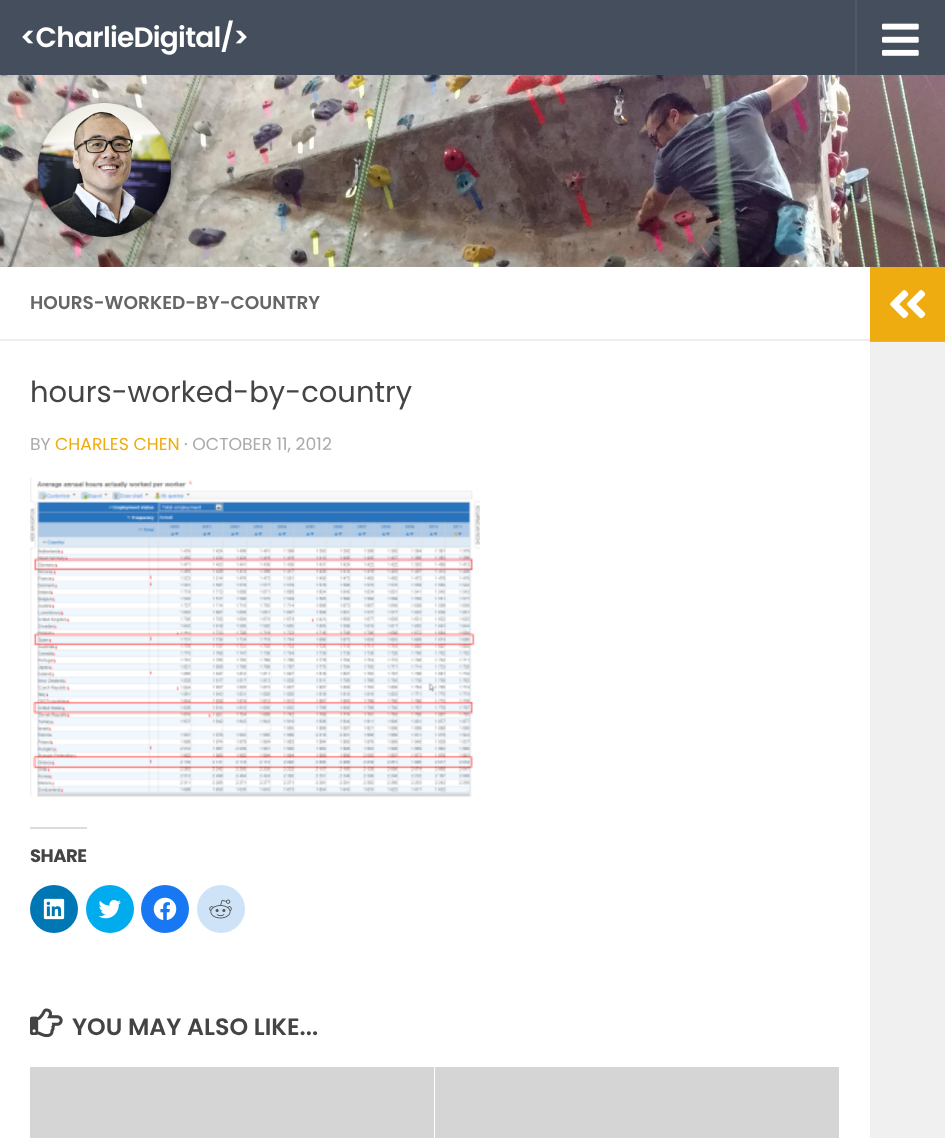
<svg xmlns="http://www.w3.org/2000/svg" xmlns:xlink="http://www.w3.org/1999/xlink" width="945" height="1138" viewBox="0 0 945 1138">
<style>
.cls-1{font:600 28px Poppins;letter-spacing:-0.75px;fill:#ffffff}
.cls-2{font:600 18.5px Poppins;fill:#666666}
.cls-3{font:29px Poppins;fill:#444444}
.cls-4{font:17.25px Poppins;fill:#aaaaaa}
.cls-5{font:17.25px Poppins;fill:#efac10}
.cls-6{font:bold 18px Poppins;letter-spacing:-0.5px;fill:#444444}
.cls-7{font:600 23.75px Poppins;fill:#444444}
</style>
<rect width="100%" height="100%" fill="#ffffff"/>
<rect fill="#454e5c" x="0" y="0" width="945" height="75"/>
<rect fill="#505966" x="855" y="0" width="2" height="75"/>
<image xlink:href="image0.png" x="882" y="23" width="37" height="33"/>
<image xlink:href="image1.png" x="0" y="75" width="945" height="192"/>
<rect fill="#eeeeee" x="0" y="339" width="870" height="2"/>
<image xlink:href="image2.png" x="30" y="477" width="450" height="320"/>
<rect fill="#dcdcde" x="30" y="827" width="57" height="2"/>
<circle fill="#0077b5" cx="54" cy="909" r="24"/>
<image xlink:href="image3.png" x="43" y="898" width="22" height="22"/>
<circle fill="#00acee" cx="110" cy="909" r="24"/>
<image xlink:href="image4.png" x="98" y="900" width="23" height="19"/>
<circle fill="#1877f2" cx="165" cy="909" r="24"/>
<image xlink:href="image5.png" x="153" y="897" width="24" height="23"/>
<circle fill="#cee3f8" cx="221" cy="909" r="24"/>
<image xlink:href="image6.png" x="209" y="899" width="23" height="20"/>
<image xlink:href="image7.png" x="30" y="1008" width="33" height="30"/>
<rect fill="#d5d5d5" x="30" y="1067" width="404" height="71"/>
<rect fill="#d5d5d5" x="435" y="1067" width="404" height="71"/>
<rect fill="#efac10" x="870" y="267" width="75" height="74"/>
<rect fill="#f1b428" x="870" y="341" width="75" height="1"/>
<image xlink:href="image8.png" x="890" y="290" width="36" height="29"/>
<rect fill="#f0f0f0" x="870" y="343" width="75" height="795"/>
<rect fill="#f2f2f2" x="870" y="342" width="75" height="1"/>
<text class="cls-1" x="20" y="47">&lt;CharlieDigital/&gt;</text>
<text class="cls-2" x="30" y="309">HOURS-WORKED-BY-COUNTRY</text>
<text class="cls-3" x="30" y="402">hours-worked-by-country</text>
<text class="cls-4" x="30" y="450">BY</text>
<text class="cls-5" x="55" y="450">CHARLES CHEN</text>
<text class="cls-4" x="184" y="450">· OCTOBER 11, 2012</text>
<text class="cls-6" x="30" y="862">SHARE</text>
<text class="cls-7" x="72" y="1035">YOU MAY ALSO LIKE...</text>
</svg>
